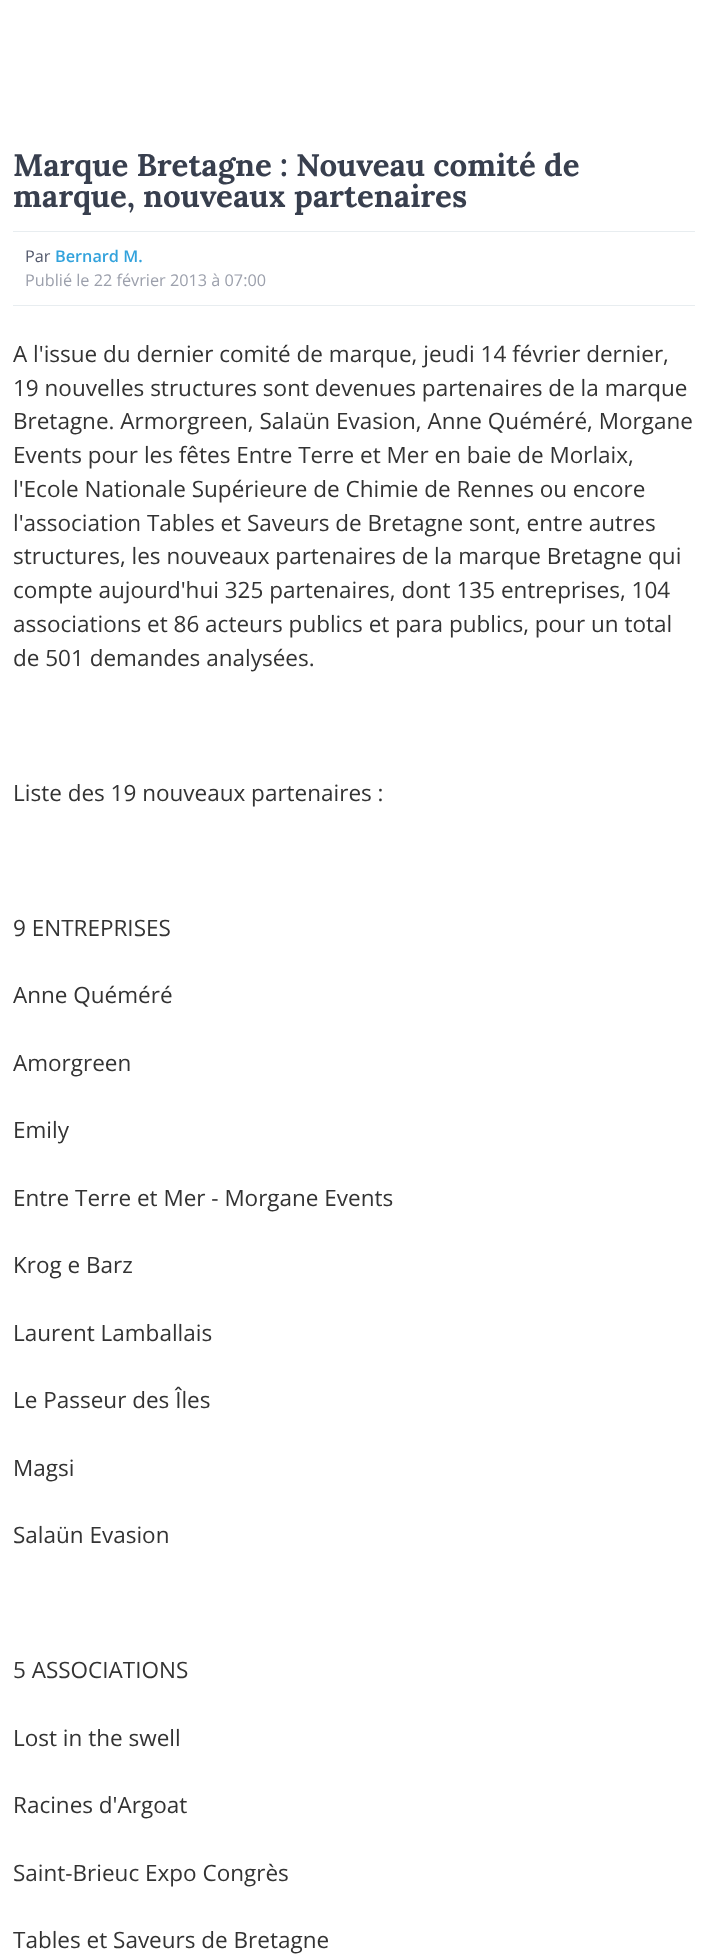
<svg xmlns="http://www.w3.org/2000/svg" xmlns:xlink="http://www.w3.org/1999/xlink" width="707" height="1955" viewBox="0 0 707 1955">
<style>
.cls-1{font:bold 31.25px Lora;fill:#383f4e}
.cls-2{font:16.25px Open Sans;fill:#53596c}
.cls-3{font:600 16.25px Open Sans;fill:#32a2dc}
.cls-4{font:16.25px Open Sans;fill:#9ca0ac}
.cls-5{font:22.5px Open Sans;fill:#333333}
</style>
<rect width="100%" height="100%" fill="#ffffff"/>
<rect fill="#e8edf0" x="13" y="231" width="682" height="1"/>
<rect fill="#e8edf0" x="13" y="305" width="682" height="1"/>
<text class="cls-1"><tspan x="13" y="176">Marque Bretagne : Nouveau comité de</tspan><tspan x="13" y="207">marque, nouveaux partenaires</tspan></text>
<text class="cls-2" x="25" y="262">Par</text>
<text class="cls-3" x="55" y="262">Bernard M.</text>
<text class="cls-4" x="25" y="286">Publié le 22 février 2013 à 07:00</text>
<text class="cls-5"><tspan x="13" y="362">A l'issue du dernier comité de marque, jeudi 14 février dernier,</tspan><tspan x="13" y="396">19 nouvelles structures sont devenues partenaires de la marque</tspan><tspan x="13" y="429">Bretagne. Armorgreen, Salaün Evasion, Anne Quéméré, Morgane</tspan><tspan x="13" y="463">Events pour les fêtes Entre Terre et Mer en baie de Morlaix,</tspan><tspan x="13" y="497">l'Ecole Nationale Supérieure de Chimie de Rennes ou encore</tspan><tspan x="13" y="531">l'association Tables et Saveurs de Bretagne sont, entre autres</tspan><tspan x="13" y="564">structures, les nouveaux partenaires de la marque Bretagne qui</tspan><tspan x="13" y="598">compte aujourd'hui 325 partenaires, dont 135 entreprises, 104</tspan><tspan x="13" y="632">associations et 86 acteurs publics et para publics, pour un total</tspan><tspan x="13" y="666">de 501 demandes analysées.</tspan></text>
<text class="cls-5" x="13" y="801">Liste des 19 nouveaux partenaires :</text>
<text class="cls-5" x="13" y="936">9 ENTREPRISES</text>
<text class="cls-5" x="13" y="1003">Anne Quéméré</text>
<text class="cls-5" x="13" y="1071">Amorgreen</text>
<text class="cls-5" x="13" y="1138">Emily</text>
<text class="cls-5" x="13" y="1206">Entre Terre et Mer - Morgane Events</text>
<text class="cls-5" x="13" y="1273">Krog e Barz</text>
<text class="cls-5" x="13" y="1341">Laurent Lamballais</text>
<text class="cls-5" x="13" y="1408">Le Passeur des Îles</text>
<text class="cls-5" x="13" y="1476">Magsi</text>
<text class="cls-5" x="13" y="1543">Salaün Evasion</text>
<text class="cls-5" x="13" y="1678">5 ASSOCIATIONS</text>
<text class="cls-5" x="13" y="1746">Lost in the swell</text>
<text class="cls-5" x="13" y="1813">Racines d'Argoat</text>
<text class="cls-5" x="13" y="1881">Saint-Brieuc Expo Congrès</text>
<text class="cls-5" x="13" y="1948">Tables et Saveurs de Bretagne</text>
</svg>
